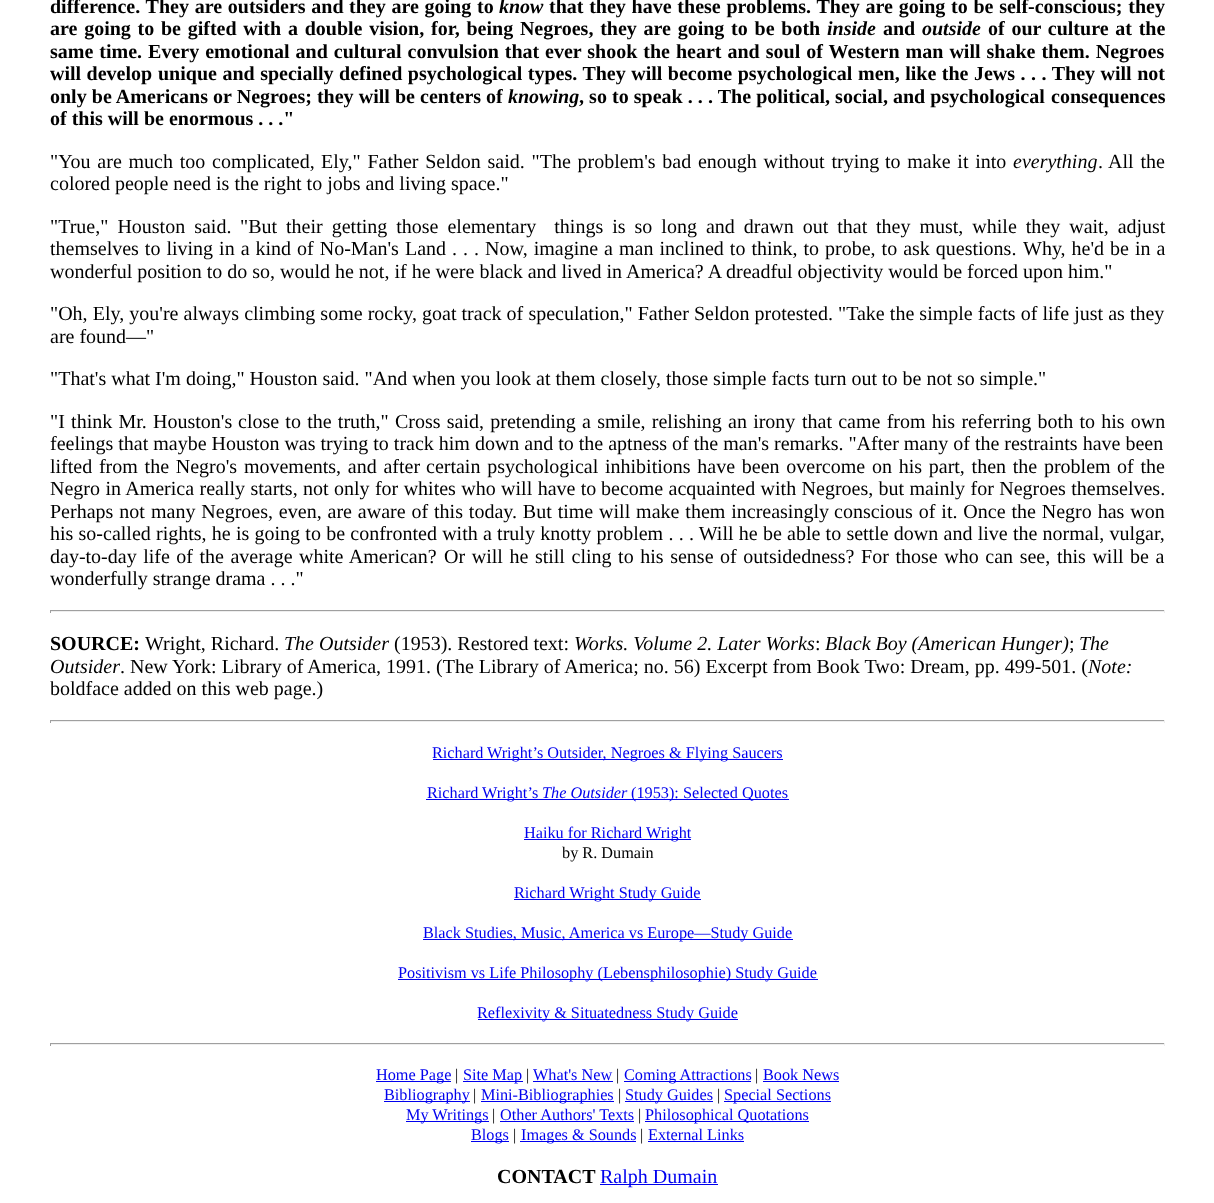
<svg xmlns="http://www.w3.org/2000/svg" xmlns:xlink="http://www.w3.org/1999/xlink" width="1214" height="1203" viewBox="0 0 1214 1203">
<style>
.cls-1{font:bold 20px Liberation Serif;fill:#000000}
.cls-2{font:italic bold 20px Liberation Serif;fill:#000000}
.cls-3{font:20px Liberation Serif;fill:#000000}
.cls-4{font:italic 20px Liberation Serif;fill:#000000}
.cls-5{font:16.25px Liberation Serif;fill:#0000ee}
.cls-6{font:italic 16.25px Liberation Serif;fill:#0000ee}
.cls-7{font:16.25px Liberation Serif;fill:#000000}
.cls-8{font:20px Liberation Serif;fill:#0000ee}
</style>
<rect width="100%" height="100%" fill="#ffffff"/>
<rect fill="#9f9f9f" x="50" y="610" width="1115" height="1"/>
<rect fill="#eeeeee" x="1164" y="610" width="1" height="3"/>
<rect fill="#eeeeee" x="50" y="611" width="1115" height="1"/>
<rect fill="#9f9f9f" x="50" y="610" width="1" height="3"/>
<rect fill="#9f9f9f" x="50" y="720" width="1115" height="1"/>
<rect fill="#eeeeee" x="1164" y="720" width="1" height="3"/>
<rect fill="#eeeeee" x="50" y="721" width="1115" height="1"/>
<rect fill="#9f9f9f" x="50" y="720" width="1" height="3"/>
<rect fill="#0000ee" x="433" y="759" width="350" height="1"/>
<rect fill="#0000ee" x="426" y="799" width="363" height="1"/>
<rect fill="#0000ee" x="524" y="839" width="167" height="1"/>
<rect fill="#0000ee" x="514" y="899" width="187" height="1"/>
<rect fill="#0000ee" x="423" y="939" width="370" height="1"/>
<rect fill="#0000ee" x="398" y="979" width="420" height="1"/>
<rect fill="#0000ee" x="478" y="1019" width="260" height="1"/>
<rect fill="#9f9f9f" x="50" y="1043" width="1115" height="1"/>
<rect fill="#eeeeee" x="1164" y="1043" width="1" height="3"/>
<rect fill="#eeeeee" x="50" y="1044" width="1115" height="1"/>
<rect fill="#9f9f9f" x="50" y="1043" width="1" height="3"/>
<rect fill="#0000ee" x="376" y="1081" width="75" height="1"/>
<rect fill="#0000ee" x="463" y="1081" width="60" height="1"/>
<rect fill="#0000ee" x="533" y="1081" width="80" height="1"/>
<rect fill="#0000ee" x="624" y="1081" width="127" height="1"/>
<rect fill="#0000ee" x="763" y="1081" width="76" height="1"/>
<rect fill="#0000ee" x="384" y="1101" width="86" height="1"/>
<rect fill="#0000ee" x="481" y="1101" width="133" height="1"/>
<rect fill="#0000ee" x="625" y="1101" width="88" height="1"/>
<rect fill="#0000ee" x="724" y="1101" width="107" height="1"/>
<rect fill="#0000ee" x="406" y="1121" width="83" height="1"/>
<rect fill="#0000ee" x="500" y="1121" width="134" height="1"/>
<rect fill="#0000ee" x="645" y="1121" width="164" height="1"/>
<rect fill="#0000ee" x="471" y="1141" width="38" height="1"/>
<rect fill="#0000ee" x="520" y="1141" width="116" height="1"/>
<rect fill="#0000ee" x="648" y="1141" width="96" height="1"/>
<rect fill="#0000ee" x="600" y="1184" width="118" height="1"/>
<text class="cls-1" x="50" y="13" word-spacing="0.75">difference. They are outsiders and</text>
<text class="cls-1" x="349" y="13" word-spacing="0.75">they are going to</text>
<text class="cls-2" x="499" y="13">know</text>
<text class="cls-1" x="549" y="13" word-spacing="0.75">that they have these problems. They are going</text>
<text class="cls-1" x="951" y="13" word-spacing="0.75">to be self‑conscious; they</text>
<text class="cls-1" x="50" y="35" word-spacing="1.75">are going to be gifted with a double vision,</text>
<text class="cls-1" x="431" y="35" word-spacing="1.75">for, being Negroes, they are going to be both</text>
<text class="cls-2" x="827" y="35">inside</text>
<text class="cls-1" x="883" y="35">and</text>
<text class="cls-2" x="922" y="35">outside</text>
<text class="cls-1" x="988" y="35" word-spacing="1.75">of our culture at the</text>
<text class="cls-1" x="50" y="58" word-spacing="1">same time. Every emotional and cultural convulsion that</text>
<text class="cls-1" x="545" y="58" word-spacing="1">ever shook the heart and soul of Western man will shake them. Negroes</text>
<text class="cls-1" x="50" y="80" word-spacing="0.5">will develop</text>
<text class="cls-1" x="158" y="80" word-spacing="0.5">unique and specially defined psychological types. They will become psychological</text>
<text class="cls-1" x="858" y="80" word-spacing="0.5">men, like the Jews . . . They will not</text>
<text class="cls-1" x="50" y="103" word-spacing="0.1">only be Americans or Negroes; they will</text>
<text class="cls-1" x="395" y="103">be centers of</text>
<text class="cls-2" x="508" y="103">knowing</text>
<text class="cls-1" x="579" y="103" word-spacing="0.1">, so to speak . . . The political, social, and psychological</text>
<text class="cls-1" x="1051" y="103">consequences</text>
<text class="cls-1" x="50" y="125">of this will be enormous . . ."</text>
<text class="cls-3" x="50" y="168" word-spacing="1.75">"You are much too complicated,</text>
<text class="cls-3" x="321" y="168" word-spacing="1.75">Ely," Father Seldon said. "The problem's bad enough without trying</text>
<text class="cls-3" x="885" y="168" word-spacing="1.75">to make it into</text>
<text class="cls-4" x="1013" y="168">everything</text>
<text class="cls-3" x="1098" y="168">.</text>
<text class="cls-3" x="1108" y="168" word-spacing="2">All the</text>
<text class="cls-3" x="50" y="190">colored people need is the right to jobs and living space."</text>
<text class="cls-3" x="50" y="233" word-spacing="4">"True," Houston said.</text>
<text class="cls-3" xml:space="preserve" x="240" y="233" word-spacing="4">"But their getting those elementary  things is so long and drawn out that</text>
<text class="cls-3" x="876" y="233" word-spacing="4">they must, while they wait, adjust</text>
<text class="cls-3" x="50" y="255" word-spacing="1">themselves to living in a kind of No‑Man's</text>
<text class="cls-3" x="405" y="255" word-spacing="1">Land . . . Now, imagine a man inclined to think, to probe, to ask questions.</text>
<text class="cls-3" x="1023" y="255" word-spacing="1">Why, he'd be in a</text>
<text class="cls-3" x="50" y="278">wonderful position to do so, would he not, if he were black and lived in America? A dreadful objectivity would be forced upon him."</text>
<text class="cls-3"><tspan x="50" y="320" word-spacing="0.1">"Oh, Ely, you're always climbing some rocky, goat track of speculation," Father Seldon protested. "Take the simple facts of life just as they</tspan><tspan x="50" y="343">are found—"</tspan></text>
<text class="cls-3" x="50" y="385">"That's what I'm doing," Houston said. "And when you look at them closely, those simple facts turn out to be not so simple."</text>
<text class="cls-3" x="50" y="428" word-spacing="1.25">"I think Mr. Houston's</text>
<text class="cls-3" x="238" y="428" word-spacing="1.25">close to the truth," Cross said, pretending a smile, relishing an irony</text>
<text class="cls-3" x="802" y="428" word-spacing="1.25">that came from his referring both to his own</text>
<text class="cls-3"><tspan x="50" y="450">feelings that maybe Houston was trying to track him down and to the aptness of the man's remarks. "After many of the restraints have been</tspan><tspan x="50" y="473" word-spacing="1.75">lifted from the Negro's movements, and after</tspan></text>
<text class="cls-3" x="426" y="473" word-spacing="1.75">certain psychological inhibitions have been overcome on his part, then the problem</text>
<text class="cls-3" x="1117" y="473" word-spacing="1.75">of the</text>
<text class="cls-3" x="50" y="495" word-spacing="0.4">Negro in America really starts, not only for whites who will have to</text>
<text class="cls-3" x="601" y="495" word-spacing="0.4">become acquainted with Negroes, but mainly for Negroes themselves.</text>
<text class="cls-3" x="50" y="518" word-spacing="0.9">Perhaps not</text>
<text class="cls-3" x="151" y="518" word-spacing="0.9">many Negroes, even, are aware of this today. But time will make them increasingly</text>
<text class="cls-3" x="834" y="518" word-spacing="0.9">conscious of it. Once the Negro has won</text>
<text class="cls-3"><tspan x="50" y="540" word-spacing="0.25">his so‑called rights, he is going to be confronted with a truly knotty problem . . . Will he be able to settle down and live the normal, vulgar,</tspan><tspan x="50" y="563" word-spacing="1.5">day-to-day life of the average white American?</tspan></text>
<text class="cls-3" x="444" y="563" word-spacing="1.6">Or will he still cling to his sense of outsidedness? For those who can see,</text>
<text class="cls-3" x="1057" y="563" word-spacing="1.5">this will be a</text>
<text class="cls-3" x="50" y="585">wonderfully strange drama . . ."</text>
<text class="cls-1" x="50" y="650">SOURCE:</text>
<text class="cls-3" x="145" y="650">Wright, Richard.</text>
<text class="cls-4" x="284" y="650">The Outsider</text>
<text class="cls-3" x="394" y="650">(1953). Restored text:</text>
<text class="cls-4" x="574" y="650">Works. Volume 2. Later Works</text>
<text class="cls-3" x="815" y="650">:</text>
<text class="cls-4" x="825" y="650">Black Boy (American Hunger)</text>
<text class="cls-3" x="1069" y="650">;</text>
<text class="cls-4" x="1079" y="650">The</text>
<text class="cls-4" x="50" y="673">Outsider</text>
<text class="cls-3" x="120" y="673">. New York: Library of America, 1991. (The Library of America; no. 56) Excerpt from Book Two: Dream, pp. 499-501. (</text>
<text class="cls-4" x="1088" y="673">Note:</text>
<text class="cls-3" x="50" y="695">boldface added on this web page.)</text>
<text class="cls-5" x="432" y="758">Richard</text>
<text class="cls-5" x="487" y="758">Wright’s Outsider, Negroes &amp; Flying Saucers</text>
<text class="cls-5" x="427" y="798">Richard</text>
<text class="cls-5" x="482" y="798">Wright’s</text>
<text class="cls-6" x="542" y="798">The Outsider</text>
<text class="cls-5" x="631" y="798">(1953): Selected Quotes</text>
<text class="cls-5" x="524" y="838">Haiku for Richard Wright</text>
<text class="cls-7" x="562" y="858">by R. Dumain</text>
<text class="cls-5" x="514" y="898">Richard Wright Study Guide</text>
<text class="cls-5" x="423" y="938">Black Studies, Music, America vs Europe—Study Guide</text>
<text class="cls-5" x="398" y="978">Positivism vs Life Philosophy (Lebensphilosophie) Study Guide</text>
<text class="cls-5" x="477" y="1018">Reflexivity &amp; Situatedness Study Guide</text>
<text class="cls-5" x="376" y="1080">Home Page</text>
<text class="cls-7" x="455" y="1080">|</text>
<text class="cls-5" x="463" y="1080">Site Map</text>
<text class="cls-7" x="526" y="1080">|</text>
<text class="cls-5" x="533" y="1080">What's New</text>
<text class="cls-7" x="616" y="1080">|</text>
<text class="cls-5" x="624" y="1080">Coming Attractions</text>
<text class="cls-7" x="755" y="1080">|</text>
<text class="cls-5" x="763" y="1080">Book News</text>
<text class="cls-5" x="384" y="1100">Bibliography</text>
<text class="cls-7" x="473" y="1100">|</text>
<text class="cls-5" x="481" y="1100">Mini-Bibliographies</text>
<text class="cls-7" x="618" y="1100">|</text>
<text class="cls-5" x="625" y="1100">Study Guides</text>
<text class="cls-7" x="717" y="1100">|</text>
<text class="cls-5" x="724" y="1100">Special Sections</text>
<text class="cls-5" x="406" y="1120">My Writings</text>
<text class="cls-7" x="492" y="1120">|</text>
<text class="cls-5" x="500" y="1120">Other Authors' Texts</text>
<text class="cls-7" x="638" y="1120">|</text>
<text class="cls-5" x="645" y="1120">Philosophical Quotations</text>
<text class="cls-5" x="471" y="1140">Blogs</text>
<text class="cls-7" x="513" y="1140">|</text>
<text class="cls-5" x="521" y="1140">Images &amp; Sounds</text>
<text class="cls-7" x="640" y="1140">|</text>
<text class="cls-5" x="648" y="1140">External Links</text>
<text class="cls-1" x="497" y="1183">CONTACT</text>
<text class="cls-8" x="600" y="1183">Ralph Dumain</text>
</svg>
